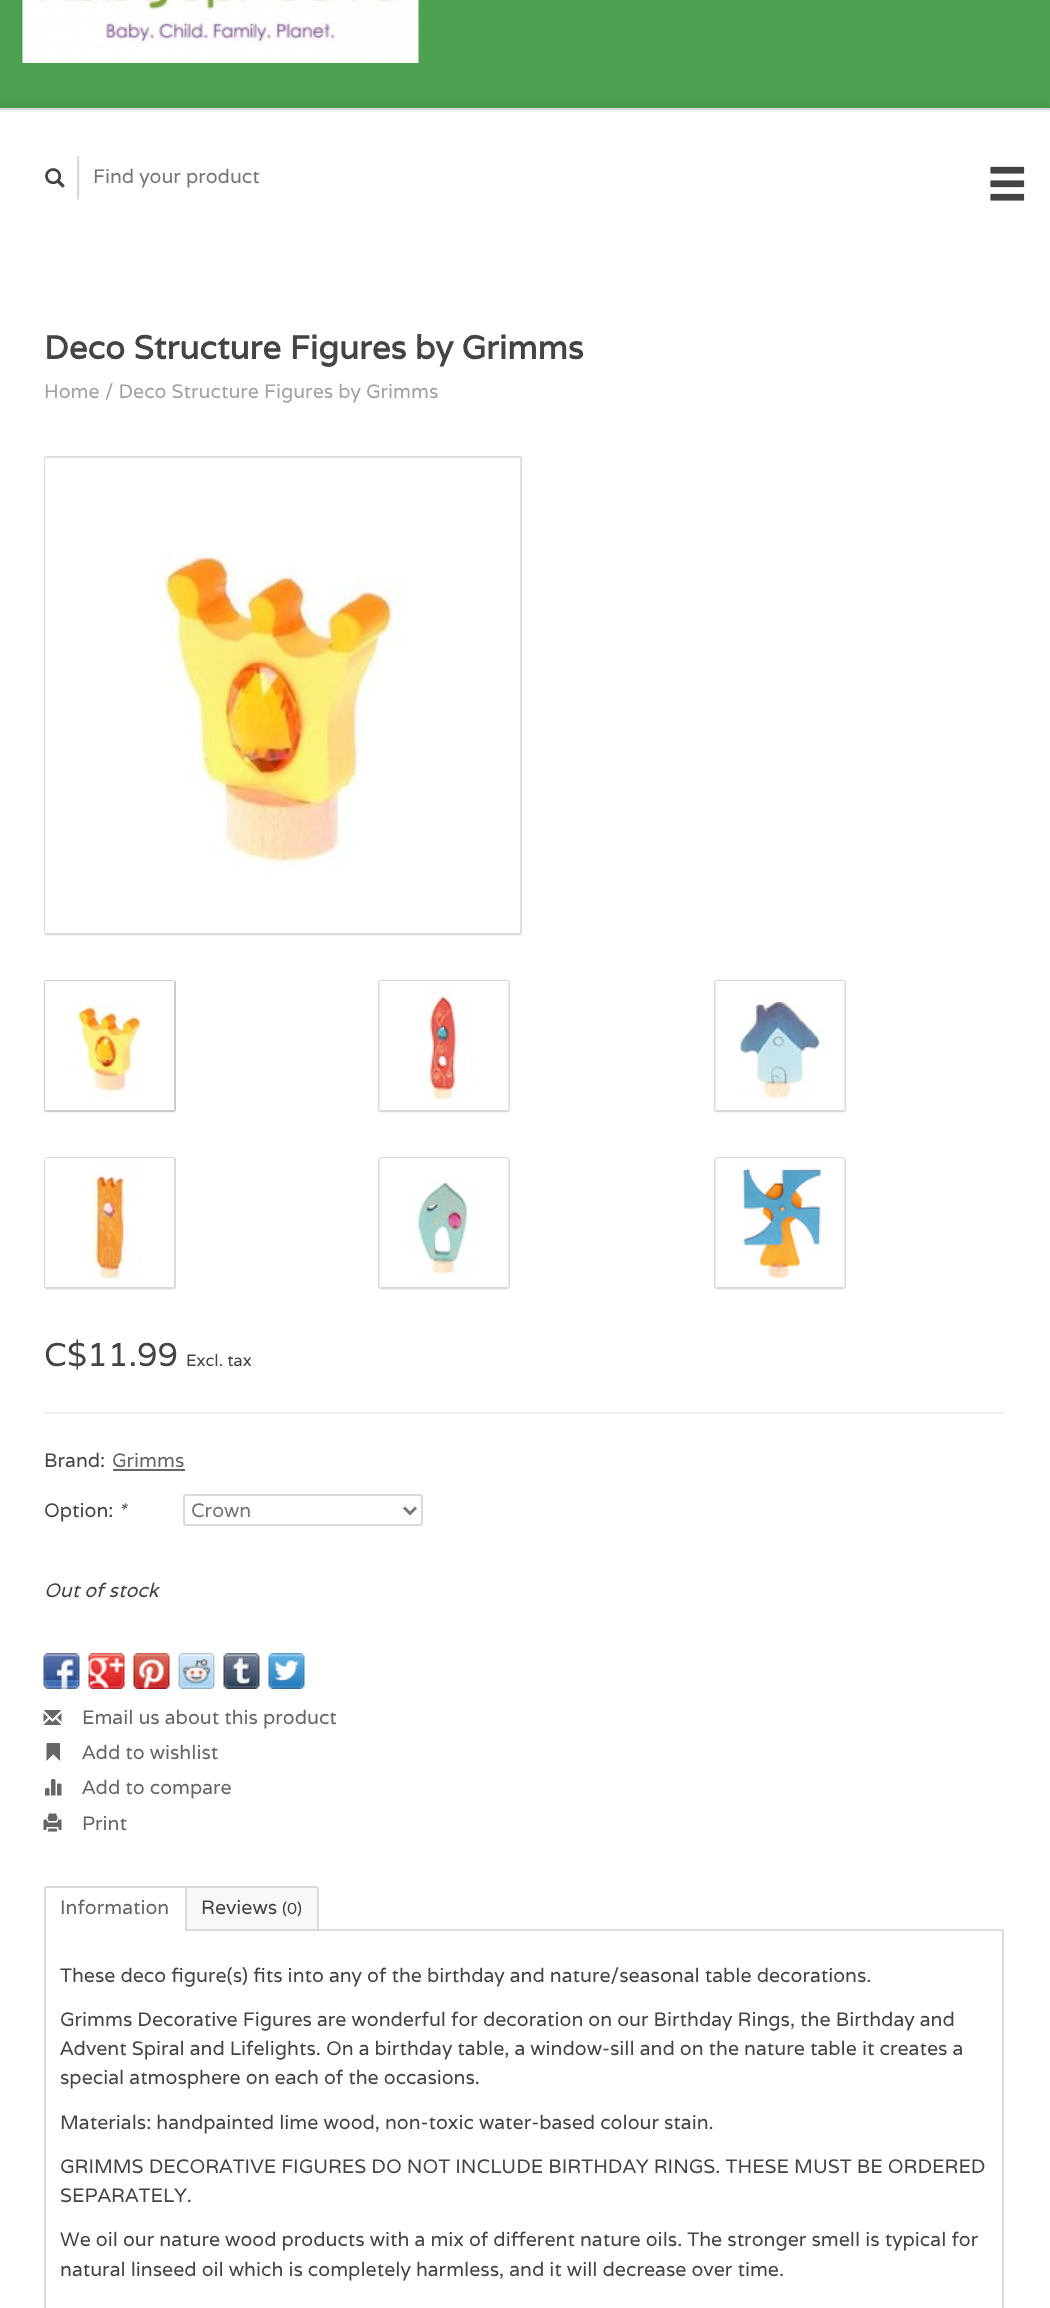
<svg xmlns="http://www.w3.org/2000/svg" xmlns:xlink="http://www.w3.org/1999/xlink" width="1050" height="2308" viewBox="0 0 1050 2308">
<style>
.cls-1{font:19.5px Varela;fill:#757575}
.cls-2{font:bold 32.9px Varela;fill:#444444}
.cls-3{font:19.5px Varela;fill:#a1a1a1}
.cls-4{font:32.9px Varela;fill:#444444}
.cls-5{font:16.5px Varela;fill:#444444}
.cls-6{font:19.5px Varela;fill:#444444}
.cls-7{font:19.5px Varela;fill:#666666}
.cls-8{font:italic 19.5px Varela;fill:#444444}
.cls-9{font:16px Varela;fill:#444444}
</style>
<defs>
<clipPath id="clip1"><rect x="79" y="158" width="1" height="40"/></clipPath>
</defs>
<rect width="100%" height="100%" fill="#4da04f"/>
<image xlink:href="image0.png" x="22" y="0" width="397" height="63"/>
<rect fill="#000000" fill-opacity="0.13" filter="blur(5px)" x="0" y="108" width="1050" height="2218" rx="3"/>
<rect fill="#ffffff" x="0" y="108" width="1050" height="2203" rx="3"/>
<rect fill="#000000" fill-opacity="0.04" x="0" y="110" width="1050" height="2"/>
<rect fill="#dadada" x="0" y="108" width="1050" height="2"/>
<g clip-path="url(#clip1)">
<rect fill="#000000" fill-opacity="0.06" filter="blur(1px)" x="38" y="158" width="42" height="40"/>
</g>
<rect fill="#dadada" x="77" y="156" width="2" height="44"/>
<image xlink:href="image1.png" x="45" y="168" width="20" height="20"/>
<image xlink:href="image2.png" x="990" y="166" width="35" height="35"/>
<path fill="#f5f5f5" d="M44 933C44 935 45 936 47 936H520L522 934V932C522 933 521 934 519 934H46C45 934 45 934 44 933Z"/>
<rect fill="none" stroke="#dadada" stroke-width="2" x="45" y="457" width="476" height="477" rx="2"/>
<image xlink:href="image3.png" x="45" y="457" width="476" height="476"/>
<path fill="#f5f5f5" d="M44 1110C44 1112 45 1113 47 1113H173C175 1113 176 1112 176 1110V984L175 982L176 1108C176 1110 174 1112 172 1112H46C45 1112 45 1111 44 1110Z"/>
<rect fill="none" stroke="#cbcbcb" stroke-width="2" x="45" y="981" width="130" height="130" rx="2"/>
<image xlink:href="image4.png" x="45" y="981" width="129" height="129"/>
<path fill="#f5f5f5" d="M378 1108V1110C378 1112 379 1113 381 1113H507C509 1113 510 1112 510 1110V1108C510 1110 509 1112 507 1112H381C379 1112 378 1110 378 1108Z"/>
<rect fill="none" stroke="#dadada" stroke-width="2" x="379" y="981" width="130" height="130" rx="2"/>
<image xlink:href="image5.png" x="379" y="981" width="130" height="129"/>
<path fill="#f5f5f5" d="M714 1108V1110C714 1112 715 1113 717 1113H843C845 1113 846 1112 846 1110V1108C846 1110 845 1112 843 1112H717C715 1112 714 1110 714 1108Z"/>
<rect fill="none" stroke="#dadada" stroke-width="2" x="715" y="981" width="130" height="130" rx="2"/>
<image xlink:href="image6.png" x="715" y="981" width="130" height="129"/>
<path fill="#f5f5f5" d="M44 1287C44 1289 45 1290 47 1290H173C175 1290 176 1289 176 1287V1161L175 1159L176 1286C176 1287 174 1288 172 1288H46C45 1288 45 1288 44 1287Z"/>
<rect fill="none" stroke="#dadada" stroke-width="2" x="45" y="1158" width="130" height="130" rx="2"/>
<image xlink:href="image7.png" x="45" y="1158" width="129" height="129"/>
<path fill="#f5f5f5" d="M378 1286V1287C378 1289 379 1290 381 1290H507C509 1290 510 1289 510 1287V1286C510 1287 509 1288 507 1288H381C379 1288 378 1287 378 1286Z"/>
<rect fill="none" stroke="#dadada" stroke-width="2" x="379" y="1158" width="130" height="130" rx="2"/>
<image xlink:href="image8.png" x="379" y="1158" width="130" height="129"/>
<path fill="#f5f5f5" d="M714 1286V1287C714 1289 715 1290 717 1290H843C845 1290 846 1289 846 1287V1286C846 1287 845 1288 843 1288H717C715 1288 714 1287 714 1286Z"/>
<rect fill="none" stroke="#dadada" stroke-width="2" x="715" y="1158" width="130" height="130" rx="2"/>
<image xlink:href="image9.png" x="715" y="1158" width="130" height="129"/>
<rect fill="#efefef" x="44" y="1412" width="960" height="2"/>
<rect fill="#666666" x="113" y="1469" width="72" height="2"/>
<rect fill="none" stroke="#dadada" stroke-width="2" x="184" y="1495" width="238" height="30" rx="2"/>
<path fill="none" stroke="#777777" stroke-width="3" d="M404 1507.5L410 1513.5L416 1507.5"/>
<image xlink:href="image10.png" x="43" y="1653" width="37" height="36"/>
<image xlink:href="image11.png" x="88" y="1653" width="37" height="36"/>
<image xlink:href="image12.png" x="133" y="1653" width="37" height="36"/>
<image xlink:href="image13.png" x="178" y="1653" width="37" height="36"/>
<image xlink:href="image14.png" x="223" y="1653" width="37" height="36"/>
<image xlink:href="image15.png" x="268" y="1653" width="37" height="36"/>
<image xlink:href="image16.png" x="43" y="1710" width="19" height="15"/>
<image xlink:href="image17.png" x="46" y="1743" width="14" height="18"/>
<image xlink:href="image18.png" x="45" y="1779" width="17" height="17"/>
<image xlink:href="image19.png" x="43" y="1813" width="19" height="19"/>
<path fill="none" stroke="#dadada" stroke-width="2" d="M45 1930H1001C1002 1930 1003 1931 1003 1932V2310C1003 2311 1002 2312 1001 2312H47C46 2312 45 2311 45 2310Z"/>
<path fill="#ffffff" d="M47 1886H186V1931H44V1889C44 1887.5 45.5 1886 47 1886Z"/>
<rect fill="#dadada" x="45" y="1886" width="141" height="2"/>
<rect fill="#dadada" x="185" y="1929" width="2" height="2"/>
<rect fill="#dadada" x="44" y="1887" width="2" height="44"/>
<path fill="#f8f8f8" d="M185 1886H315C316.5 1886 318 1887.5 318 1889V1929H185Z"/>
<rect fill="#dadada" x="185" y="1886" width="132" height="2"/>
<rect fill="#dadada" x="317" y="1887" width="2" height="42"/>
<rect fill="#dadada" x="185" y="1886" width="2" height="43"/>
<text class="cls-1" x="93" y="183">Find your product</text>
<text class="cls-2" x="44" y="359">Deco Structure Figures by Grimms</text>
<text class="cls-3" x="44" y="398">Home / Deco Structure Figures by Grimms</text>
<text class="cls-4" x="44" y="1366">C$11.99</text>
<text class="cls-5" x="186" y="1366">Excl. tax</text>
<text class="cls-6" x="44" y="1467">Brand:</text>
<text class="cls-7" x="112" y="1467">Grimms</text>
<text class="cls-6" x="44" y="1517">Option:</text>
<text class="cls-8" x="118" y="1517">*</text>
<text class="cls-1" x="191" y="1517">Crown</text>
<text class="cls-8" x="44" y="1597">Out of stock</text>
<text class="cls-7"><tspan x="82" y="1724">Email us about this product</tspan><tspan x="82" y="1759">Add to wishlist</tspan><tspan x="82" y="1794">Add to compare</tspan><tspan x="82" y="1830">Print</tspan></text>
<text class="cls-7" x="60" y="1914">Information</text>
<text class="cls-6" x="201" y="1914">Reviews</text>
<text class="cls-9" x="282" y="1914">(0)</text>
<text class="cls-6" x="60" y="1982">These deco figure(s) fits into any of the birthday and nature/seasonal table decorations.</text>
<text class="cls-6"><tspan x="60" y="2026">Grimms Decorative Figures are wonderful for decoration on our Birthday Rings, the Birthday and</tspan><tspan x="60" y="2055">Advent Spiral and Lifelights. On a birthday table, a window-sill and on the nature table it creates a</tspan><tspan x="60" y="2084">special atmosphere on each of the occasions.</tspan></text>
<text class="cls-6" x="60" y="2129">Materials: handpainted lime wood, non-toxic water-based colour stain.</text>
<text class="cls-6"><tspan x="60" y="2173">GRIMMS DECORATIVE FIGURES DO NOT INCLUDE BIRTHDAY RINGS. THESE MUST BE ORDERED</tspan><tspan x="60" y="2202">SEPARATELY.</tspan></text>
<text class="cls-6"><tspan x="60" y="2246">We oil our nature wood products with a mix of different nature oils. The stronger smell is typical for</tspan><tspan x="60" y="2276">natural linseed oil which is completely harmless, and it will decrease over time.</tspan></text>
</svg>
